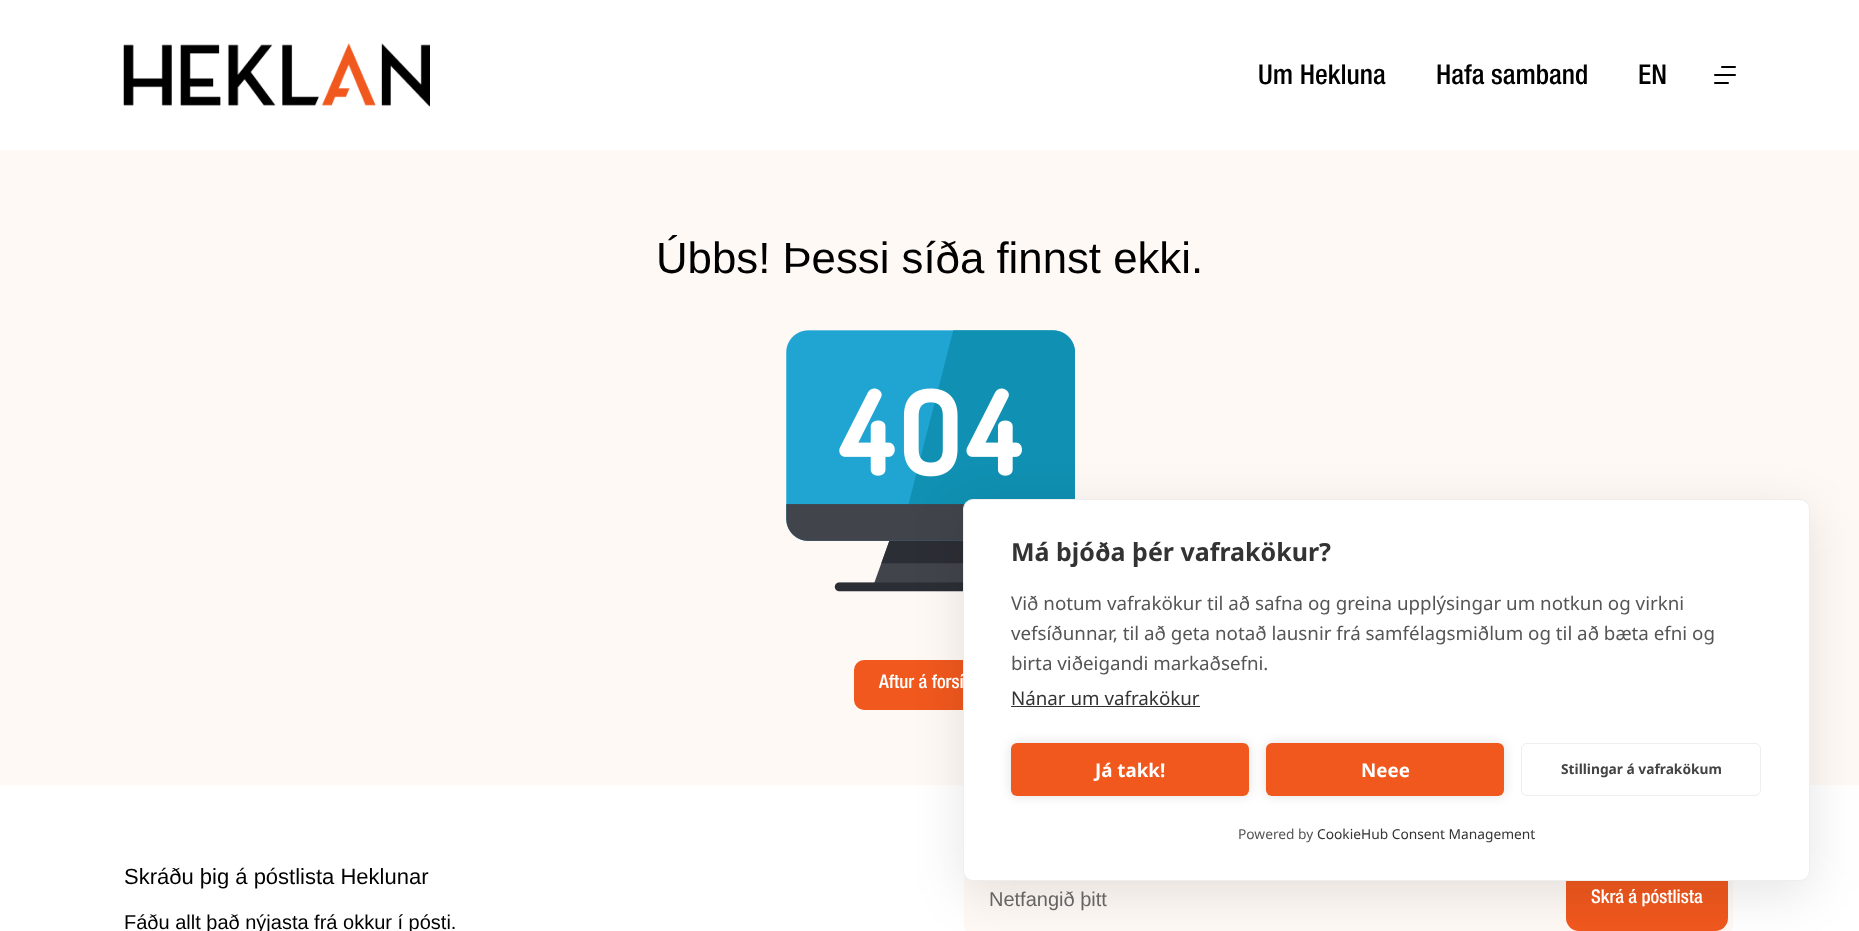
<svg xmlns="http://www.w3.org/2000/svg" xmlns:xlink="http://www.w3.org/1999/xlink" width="1859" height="931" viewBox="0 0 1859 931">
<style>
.cls-1{font:500 27.5px Helvetica Neue;fill:#000000}
.cls-2{font:43.75px Liberation Sans;fill:#000000}
.cls-3{font:500 18.75px Helvetica Neue;fill:#ffffff}
.cls-4{font:22px Liberation Sans;fill:#000000}
.cls-5{font:20px Liberation Sans;fill:#000000}
.cls-6{font:20px Liberation Sans;fill:#666462}
.cls-7{font:bold 25px Noto Sans;fill:#333333}
.cls-8{font:18.75px Noto Sans;fill:#555555}
.cls-9{font:18.75px Noto Sans;fill:#333333}
.cls-10{font:bold 18.75px Noto Sans;fill:#ffffff}
.cls-11{font:bold 13.75px Noto Sans;fill:#444444}
.cls-12{font:13.75px Noto Sans;fill:#555555}
.cls-13{font:13.75px Noto Sans;fill:#333333}
</style>
<rect width="100%" height="100%" fill="#fff9f6"/>
<rect fill="#ffffff" x="0" y="0" width="1859" height="150"/>
<image xlink:href="image0.png" x="123" y="43" width="307" height="64"/>
<rect fill="#000000" x="1721" y="66" width="15" height="2" rx="1"/>
<rect fill="#000000" x="1714" y="74" width="22" height="2" rx="1"/>
<rect fill="#000000" x="1714" y="82" width="15" height="2" rx="1"/>
<image xlink:href="image1.png" x="786" y="330" width="289" height="262"/>
<rect fill="#f0581e" x="854" y="660" width="152" height="50" rx="10"/>
<rect fill="#ffffff" x="0" y="785" width="1859" height="146"/>
<rect fill="#fff9f6" stroke="#ffffff" stroke-width="3" x="962.5" y="861.5" width="772" height="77" rx="13.5"/>
<rect fill="#f0581e" x="1566" y="869" width="162" height="62" rx="13"/>
<rect fill="#000000" fill-opacity="0.1" filter="blur(25px)" x="963" y="511" width="847" height="383" rx="10"/>
<rect fill="#ffffff" stroke="#eeeeee" x="963.5" y="499.5" width="846" height="381" rx="9.5"/>
<rect fill="#333333" x="1011" y="706" width="189" height="1"/>
<rect fill="#000000" fill-opacity="0.12" filter="blur(6px)" x="1011" y="743" width="238" height="53" rx="6"/>
<rect fill="#f0581e" x="1011" y="743" width="238" height="53" rx="6"/>
<rect fill="#000000" fill-opacity="0.12" filter="blur(6px)" x="1266" y="743" width="238" height="53" rx="6"/>
<rect fill="#f0581e" x="1266" y="743" width="238" height="53" rx="6"/>
<rect fill="none" stroke="#eeeeee" x="1521.5" y="743.5" width="239" height="52" rx="5.5"/>
<text class="cls-1" x="1258" y="84">Um Hekluna</text>
<text class="cls-1" x="1436" y="84">Hafa samband</text>
<text class="cls-1" x="1638" y="84">EN</text>
<text class="cls-2" x="656" y="273">Úbbs! Þessi síða finnst ekki.</text>
<text class="cls-3" x="879" y="688">Aftur á forsí</text>
<text class="cls-4" x="124" y="884">Skráðu þig á póstlista Heklunar</text>
<text class="cls-5" x="124" y="929">Fáðu allt það nýjasta frá okkur í pósti.</text>
<text class="cls-6" x="989" y="906">Netfangið þitt</text>
<text class="cls-3" x="1591" y="903">Skrá á póstlista</text>
<text class="cls-7" x="1011" y="561">Má bjóða þér vafrakökur?</text>
<text class="cls-8"><tspan x="1011" y="610">Við notum vafrakökur til að safna og greina upplýsingar um notkun og virkni</tspan><tspan x="1011" y="640">vefsíðunnar, til að geta notað lausnir frá samfélagsmiðlum og til að bæta efni og</tspan><tspan x="1011" y="670">birta viðeigandi markaðsefni.</tspan></text>
<text class="cls-9" x="1011" y="705">Nánar um vafrakökur</text>
<text class="cls-10" x="1095" y="777">Já takk!</text>
<text class="cls-10" x="1361" y="777">Neee</text>
<text class="cls-11" x="1561" y="774">Stillingar á vafrakökum</text>
<text class="cls-12" x="1238" y="839">Powered by</text>
<text class="cls-13" x="1317" y="839">CookieHub Consent Management</text>
</svg>
